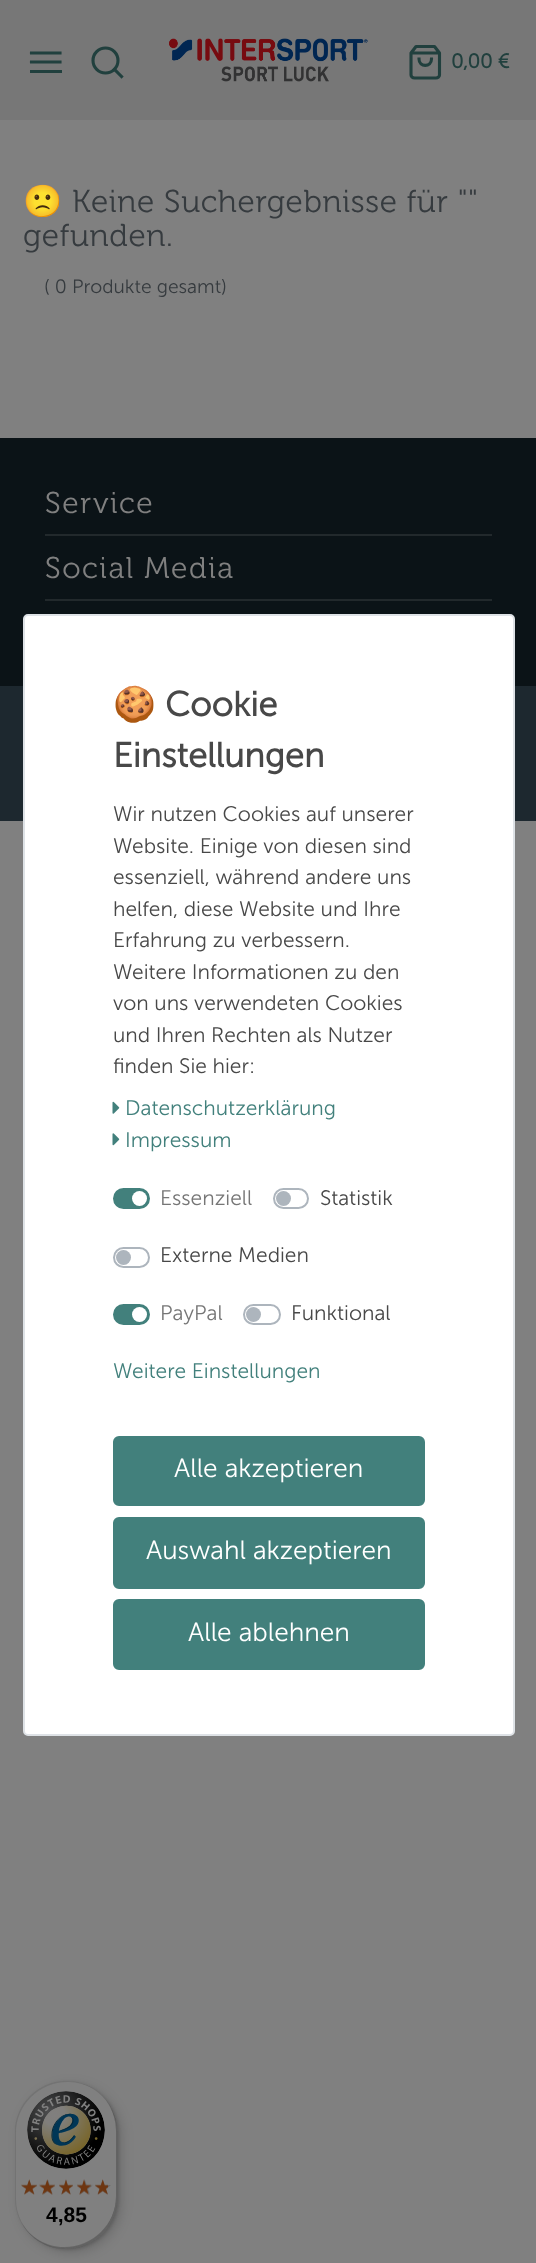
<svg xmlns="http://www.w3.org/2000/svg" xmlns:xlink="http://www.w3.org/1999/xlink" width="536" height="2263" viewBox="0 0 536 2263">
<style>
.cls-1{font:bold 20px Museo Sans;fill:#21403e}
.cls-2{font:31.5px Noto Color Emoji;letter-spacing:0.6px;fill:#363b3f}
.cls-3{font:300 31.5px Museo;letter-spacing:0.6px;fill:#363b3f}
.cls-4{font:300 19.25px Museo Sans;fill:#363b3f}
.cls-5{font:300 30px Museo;letter-spacing:1.5px;fill:#808080}
.cls-6{font:bold 34.5px Noto Color Emoji;fill:#484848}
.cls-7{font:bold 34.5px Museo Sans;fill:#484848}
.cls-8{font:300 21px Museo Sans;fill:#484848}
.cls-9{font:300 21px Museo Sans;fill:#42807c}
.cls-10{font:300 21px Museo Sans;fill:#767676}
.cls-11{font:300 26.25px Museo Sans;fill:#ffffff}
.cls-12{font:bold 21px Liberation Sans;fill:#000000}
</style>
<rect width="100%" height="100%" fill="#808080"/>
<rect fill="#777777" x="0" y="0" width="536" height="120"/>
<path fill="none" stroke="#21403e" stroke-width="3.1" stroke-linecap="square" stroke-linejoin="round" d="M31.5 62H60M31.5 53H60"/>
<rect fill="#21403e" x="30" y="70" width="32" height="3"/>
<circle fill="none" stroke="#21403e" stroke-width="3.1" cx="105.5" cy="60.5" r="12.5"/>
<path fill="none" stroke="#21403e" stroke-width="3.1" stroke-linecap="square" stroke-linejoin="round" d="M121.5 76.5L114.5 69.5"/>
<image xlink:href="image0.png" x="169" y="38" width="199" height="44"/>
<path fill="none" stroke="#21403e" stroke-width="3.1" stroke-linecap="square" stroke-linejoin="round" d="M416 46.5L411 53V75C411 76.5 412.5 78 414.5 78H436C438 78 439.5 76.5 439.5 75V53L434.5 46.5ZM412.5 53H438M431.5 59C431.5 67.5 419 67.5 419 59"/>
<rect fill="#0b1317" x="0" y="438" width="536" height="248"/>
<rect fill="#22292c" x="45" y="534" width="447" height="2"/>
<rect fill="#22292c" x="45" y="599" width="447" height="2"/>
<rect fill="#1d282f" x="0" y="686" width="536" height="135"/>
<rect fill="#ffffff" stroke="#dee2e6" stroke-width="2" x="24" y="615" width="490" height="1120" rx="4"/>
<image xlink:href="image1.png" x="112" y="1101" width="8" height="13"/>
<image xlink:href="image2.png" x="112" y="1133" width="8" height="13"/>
<rect fill="#42807c" stroke="#42807c" stroke-width="2" x="114" y="1189" width="35" height="19" rx="9.5"/>
<circle fill="#ffffff" cx="139.5" cy="1198.5" r="7.5"/>
<rect fill="none" stroke="#adb5bd" stroke-width="2" x="274" y="1189" width="34" height="19" rx="9.5"/>
<circle fill="#adb5bd" cx="283.5" cy="1198.5" r="7.5"/>
<rect fill="none" stroke="#adb5bd" stroke-width="2" x="114" y="1248" width="35" height="19" rx="9.5"/>
<circle fill="#adb5bd" cx="123.5" cy="1257.5" r="7.5"/>
<rect fill="#42807c" stroke="#42807c" stroke-width="2" x="114" y="1305" width="35" height="19" rx="9.5"/>
<circle fill="#ffffff" cx="139.5" cy="1314.5" r="7.5"/>
<rect fill="none" stroke="#adb5bd" stroke-width="2" x="244" y="1305" width="36" height="19" rx="9.5"/>
<circle fill="#adb5bd" cx="253.5" cy="1314.5" r="7.5"/>
<rect fill="#42807c" stroke="#42807c" stroke-width="2" x="114" y="1437" width="310" height="68" rx="5"/>
<rect fill="#42807c" stroke="#42807c" stroke-width="2" x="114" y="1518" width="310" height="70" rx="5"/>
<rect fill="#42807c" stroke="#42807c" stroke-width="2" x="114" y="1600" width="310" height="69" rx="5"/>
<rect fill="#000000" fill-opacity="0.15" filter="blur(6px)" x="20" y="2085" width="102" height="168" rx="51"/>
<rect fill="#000000" fill-opacity="0.15" filter="blur(1.5px)" x="17" y="2082" width="102" height="168" rx="51"/>
<rect fill="#808080" x="15" y="2081" width="102" height="168" rx="51"/>
<path fill="#000000" fill-opacity="0.1" d="M68 2082C78 2082 86 2085 94 2089C86 2084 76 2081 66 2081C38 2081 15 2104 15 2132V2198C15 2215 23 2230 36 2239C24 2230 16 2215 16 2199V2133C16 2105 39 2082 68 2082Z"/>
<path fill="#000000" fill-opacity="0.2" d="M22 2223C30 2239 47 2249 66 2249C94 2249 117 2226 117 2198V2132C117 2123 115 2114 110 2107C114 2114 116 2122 116 2130V2196C116 2224 93 2247 64 2247C46 2247 30 2237 22 2223Z"/>
<path fill="#191919" fill-opacity="0.2" d="M27 2231C37 2242 51 2249 66 2249C94 2249 117 2226 117 2198V2132C117 2120 113 2109 106 2100C112 2109 116 2119 116 2131V2197C116 2225 93 2248 65 2248C50 2248 37 2242 27 2231Z"/>
<path fill="#808080" fill-opacity="0.3" d="M27 2231C37 2242 51 2249 66 2249C94 2249 117 2226 117 2198V2132C117 2117 110 2103 99 2093C110 2103 116 2116 116 2131V2197C116 2225 93 2248 65 2248C50 2248 37 2242 27 2231Z"/>
<image xlink:href="image3.png" x="27" y="2091" width="78" height="78"/>
<image xlink:href="image4.png" x="21" y="2180" width="16" height="14"/>
<image xlink:href="image5.png" x="41" y="2180" width="14" height="15"/>
<image xlink:href="image6.png" x="59" y="2180" width="14" height="14"/>
<image xlink:href="image7.png" x="77" y="2179" width="16" height="16"/>
<image xlink:href="image8.png" x="95" y="2180" width="16" height="14"/>
<image xlink:href="image9.png" x="21" y="2179" width="16" height="16"/>
<image xlink:href="image10.png" x="39" y="2179" width="16" height="16"/>
<image xlink:href="image11.png" x="59" y="2179" width="14" height="16"/>
<image xlink:href="image12.png" x="77" y="2179" width="14" height="16"/>
<image xlink:href="image13.png" x="95" y="2179" width="13" height="16"/>
<text class="cls-1" x="451" y="68">0,00 €</text>
<text class="cls-2" x="23" y="212">🙁</text>
<text class="cls-3" x="72" y="212">Keine Suchergebnisse für ""</text>
<text class="cls-3" x="23" y="246">gefunden.</text>
<text class="cls-4" x="44" y="293">( 0 Produkte gesamt)</text>
<text class="cls-5" x="45" y="513">Service</text>
<text class="cls-5" x="45" y="578">Social Media</text>
<text class="cls-6" x="113" y="716">🍪</text>
<text class="cls-7" x="165" y="716">Cookie</text>
<text class="cls-7" x="113" y="767">Einstellungen</text>
<text class="cls-8"><tspan x="113" y="821">Wir nutzen Cookies auf unserer</tspan><tspan x="113" y="853">Website. Einige von diesen sind</tspan><tspan x="113" y="884">essenziell, während andere uns</tspan><tspan x="113" y="916">helfen, diese Website und Ihre</tspan><tspan x="113" y="947">Erfahrung zu verbessern.</tspan><tspan x="113" y="979">Weitere Informationen zu den</tspan><tspan x="113" y="1010">von uns verwendeten Cookies</tspan><tspan x="113" y="1042">und Ihren Rechten als Nutzer</tspan><tspan x="113" y="1073">finden Sie hier:</tspan></text>
<text class="cls-9"><tspan x="125" y="1115">Datenschutzerklärung</tspan><tspan x="125" y="1147">Impressum</tspan></text>
<text class="cls-10" x="160" y="1205">Essenziell</text>
<text class="cls-8" x="320" y="1205">Statistik</text>
<text class="cls-8" x="160" y="1262">Externe Medien</text>
<text class="cls-10" x="160" y="1320">PayPal</text>
<text class="cls-8" x="291" y="1320">Funktional</text>
<text class="cls-9" x="113" y="1378">Weitere Einstellungen</text>
<text class="cls-11" x="174" y="1477">Alle akzeptieren</text>
<text class="cls-11" x="146" y="1559">Auswahl akzeptieren</text>
<text class="cls-11" x="188" y="1641">Alle ablehnen</text>
<text class="cls-12" x="46" y="2222">4,85</text>
</svg>
